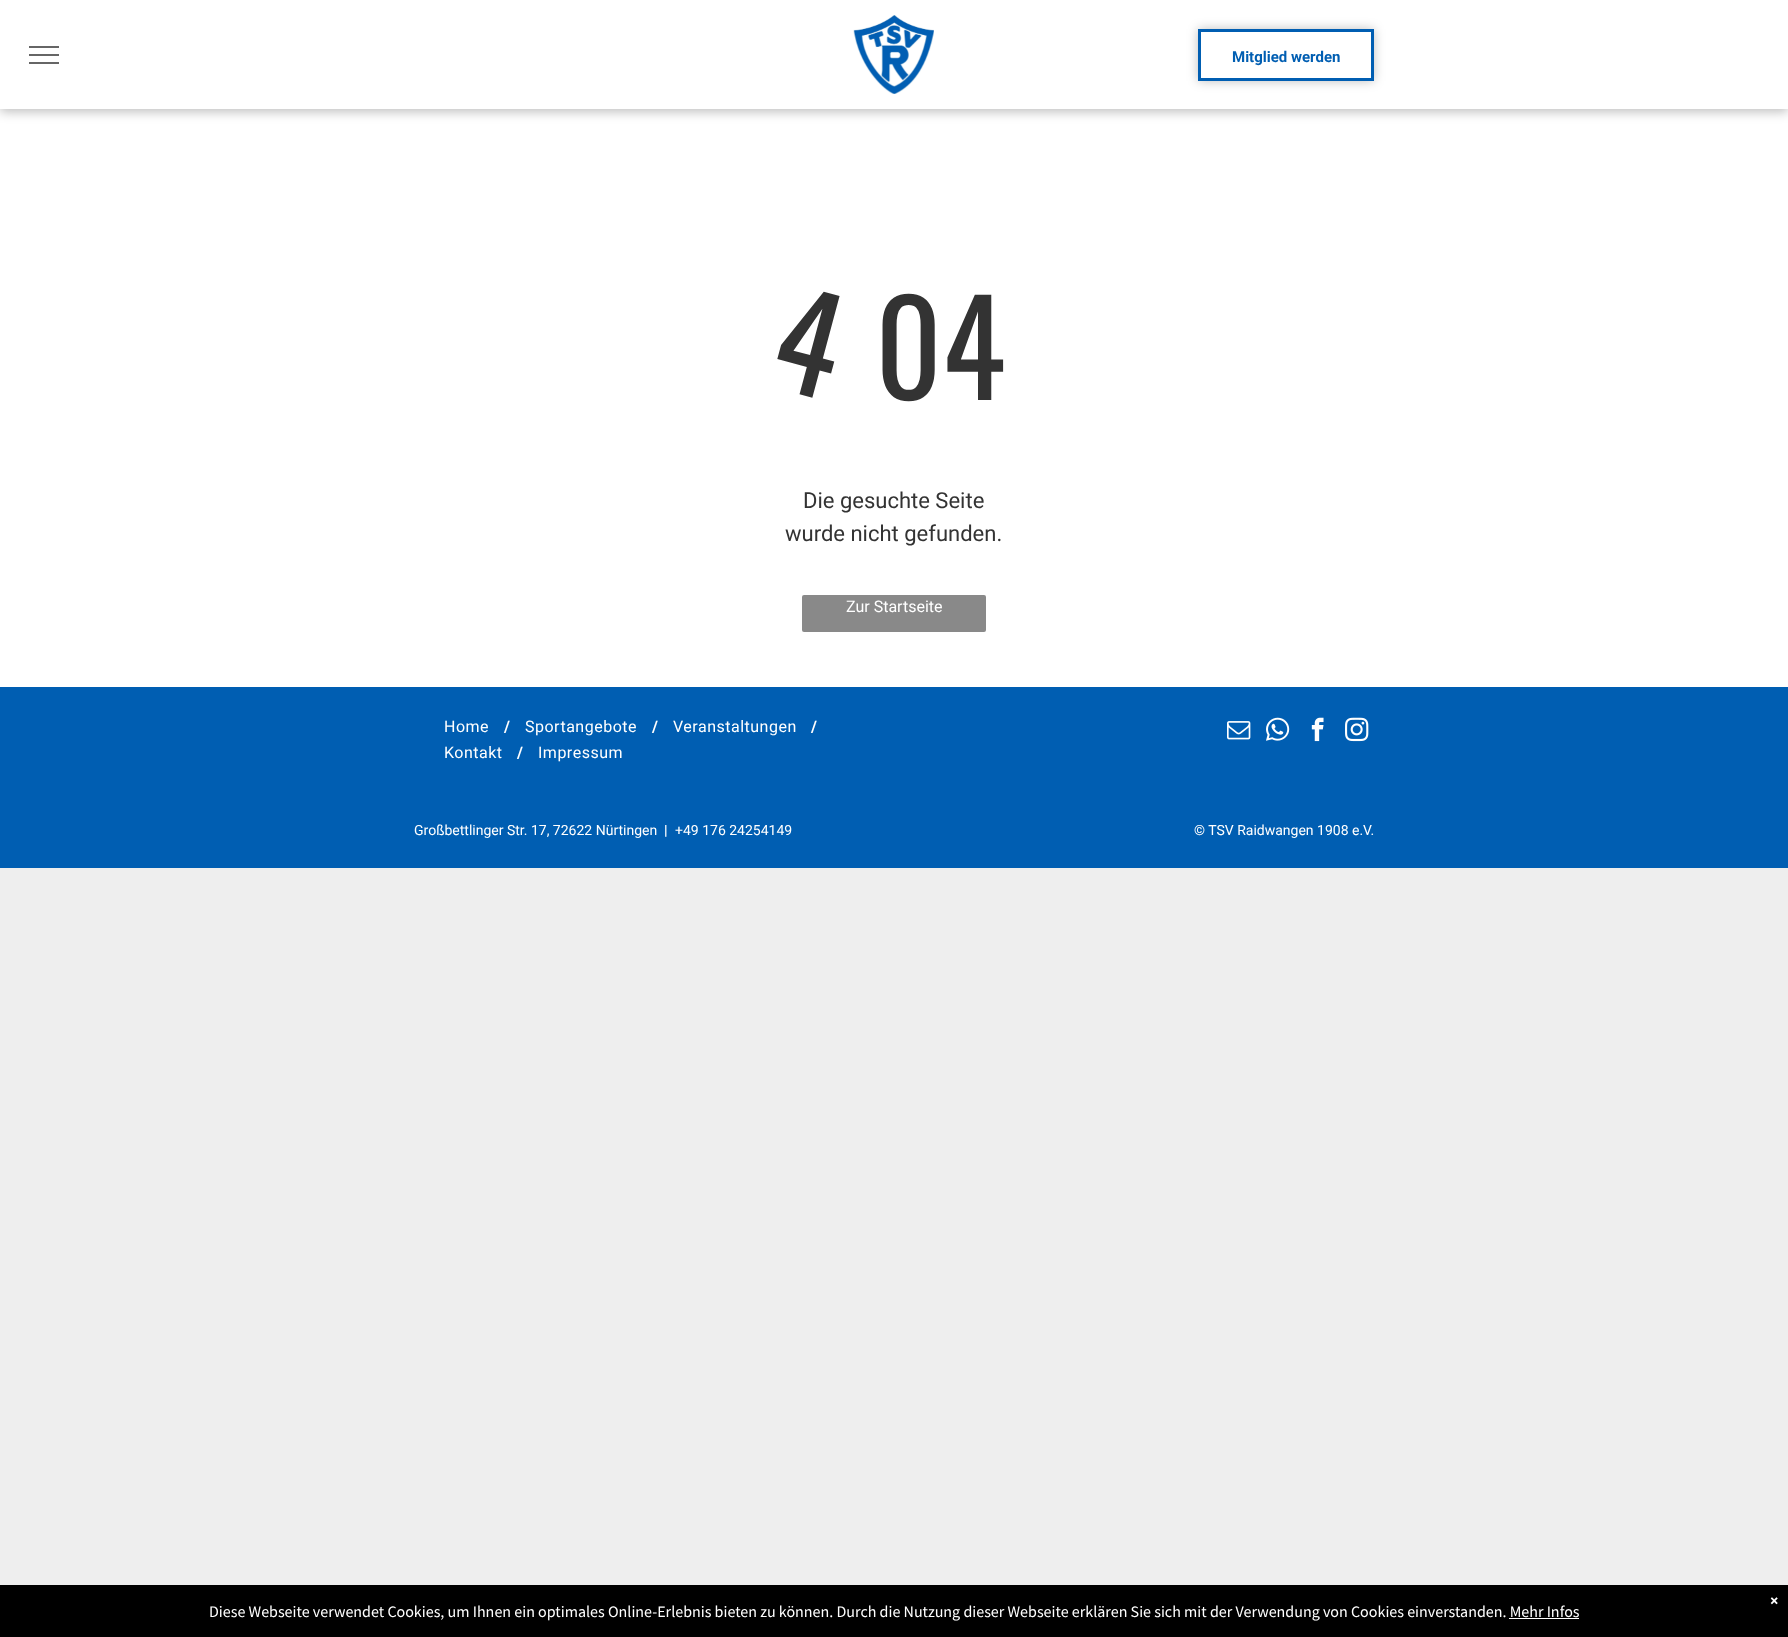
<svg xmlns="http://www.w3.org/2000/svg" xmlns:xlink="http://www.w3.org/1999/xlink" width="1788" height="1637" viewBox="0 0 1788 1637">
<style>
.cls-1{font:bold 15px Roboto;fill:#005eb2}
.cls-2{font:130px Oswald;fill:#333333}
.cls-3{font:22px Roboto;fill:#333333}
.cls-4{font:16px Roboto;fill:#ffffff}
.cls-5{font:16px Roboto;letter-spacing:0.5px;fill:#ffffff}
.cls-6{font:bold 16px Roboto;fill:#ffffff}
.cls-7{font:14px Roboto;fill:#ffffff}
.cls-8{font:bold 14px Roboto;fill:#ffffff}
.cls-9{font:bold 16px Source Sans Pro;fill:#ffffff}
.cls-10{font:16px Source Sans Pro;fill:#ffffff}
</style>
<defs>
<clipPath id="clip1"><path d="M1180 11H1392V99H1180ZM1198 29H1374V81H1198Z" clip-rule="evenodd"/></clipPath>
</defs>
<rect width="100%" height="100%" fill="#eeeeee"/>
<rect fill="#ffffff" x="0" y="109" width="1788" height="578"/>
<rect fill="#000000" fill-opacity="0.25" filter="blur(5.5px)" x="0" y="3" width="1788" height="109"/>
<rect fill="#ffffff" x="0" y="0" width="1788" height="109"/>
<rect fill="#666666" x="29" y="46" width="30" height="2"/>
<rect fill="#666666" x="29" y="54" width="30" height="2"/>
<rect fill="#666666" x="29" y="62" width="30" height="2"/>
<image xlink:href="image0.png" x="853" y="15" width="81" height="79"/>
<g clip-path="url(#clip1)">
<rect fill="#000000" fill-opacity="0.25" filter="blur(5.5px)" x="1198" y="29" width="176" height="52"/>
</g>
<rect fill="none" stroke="#005eb2" stroke-width="3" x="1199.5" y="30.5" width="173" height="49"/>
<rect fill="#898989" x="802" y="595" width="184" height="37" rx="2"/>
<rect fill="#005eb2" x="0" y="687" width="1788" height="181"/>
<image xlink:href="image1.png" x="1227" y="721" width="24" height="19"/>
<image xlink:href="image2.png" x="1266" y="717" width="24" height="24"/>
<image xlink:href="image3.png" x="1311" y="717" width="13" height="25"/>
<image xlink:href="image4.png" x="1345" y="717" width="24" height="25"/>
<rect fill="#000000" x="0" y="1585" width="1788" height="52"/>
<rect fill="#ffffff" x="1509" y="1618" width="70" height="1"/>
<text class="cls-1" x="1232" y="62">Mitglied werden</text>
<text class="cls-2" x="765" y="385" transform="rotate(15 765 385)">4</text>
<text class="cls-2" x="875" y="400">04</text>
<text class="cls-3" x="803" y="508">Die gesuchte Seite</text>
<text class="cls-3" x="785" y="541">wurde nicht gefunden.</text>
<text class="cls-4" x="846" y="612">Zur Startseite</text>
<text class="cls-5" x="444" y="732">Home</text>
<text class="cls-6" x="504" y="732">/</text>
<text class="cls-5" x="525" y="732">Sportangebote</text>
<text class="cls-6" x="652" y="732">/</text>
<text class="cls-5" x="673" y="732">Veranstaltungen</text>
<text class="cls-6" x="811" y="732">/</text>
<text class="cls-5" x="444" y="758">Kontakt</text>
<text class="cls-6" x="517" y="758">/</text>
<text class="cls-5" x="538" y="758">Impressum</text>
<text class="cls-7" x="414" y="835">Großbettlinger Str. 17, 72622 Nürtingen</text>
<text class="cls-8" x="664" y="835">|</text>
<text class="cls-7" x="675" y="835">+49 176 24254149</text>
<text class="cls-7" x="1194" y="835">© TSV Raidwangen 1908 e.V.</text>
<text class="cls-9" x="1770" y="1606">×</text>
<text class="cls-10" x="209" y="1617">Diese Webseite verwendet Cookies, um Ihnen ein optimales Online-Erlebnis bieten zu können. Durch die Nutzung dieser Webseite erklären Sie sich mit der Verwendung von Cookies einverstanden. Mehr Infos</text>
</svg>
